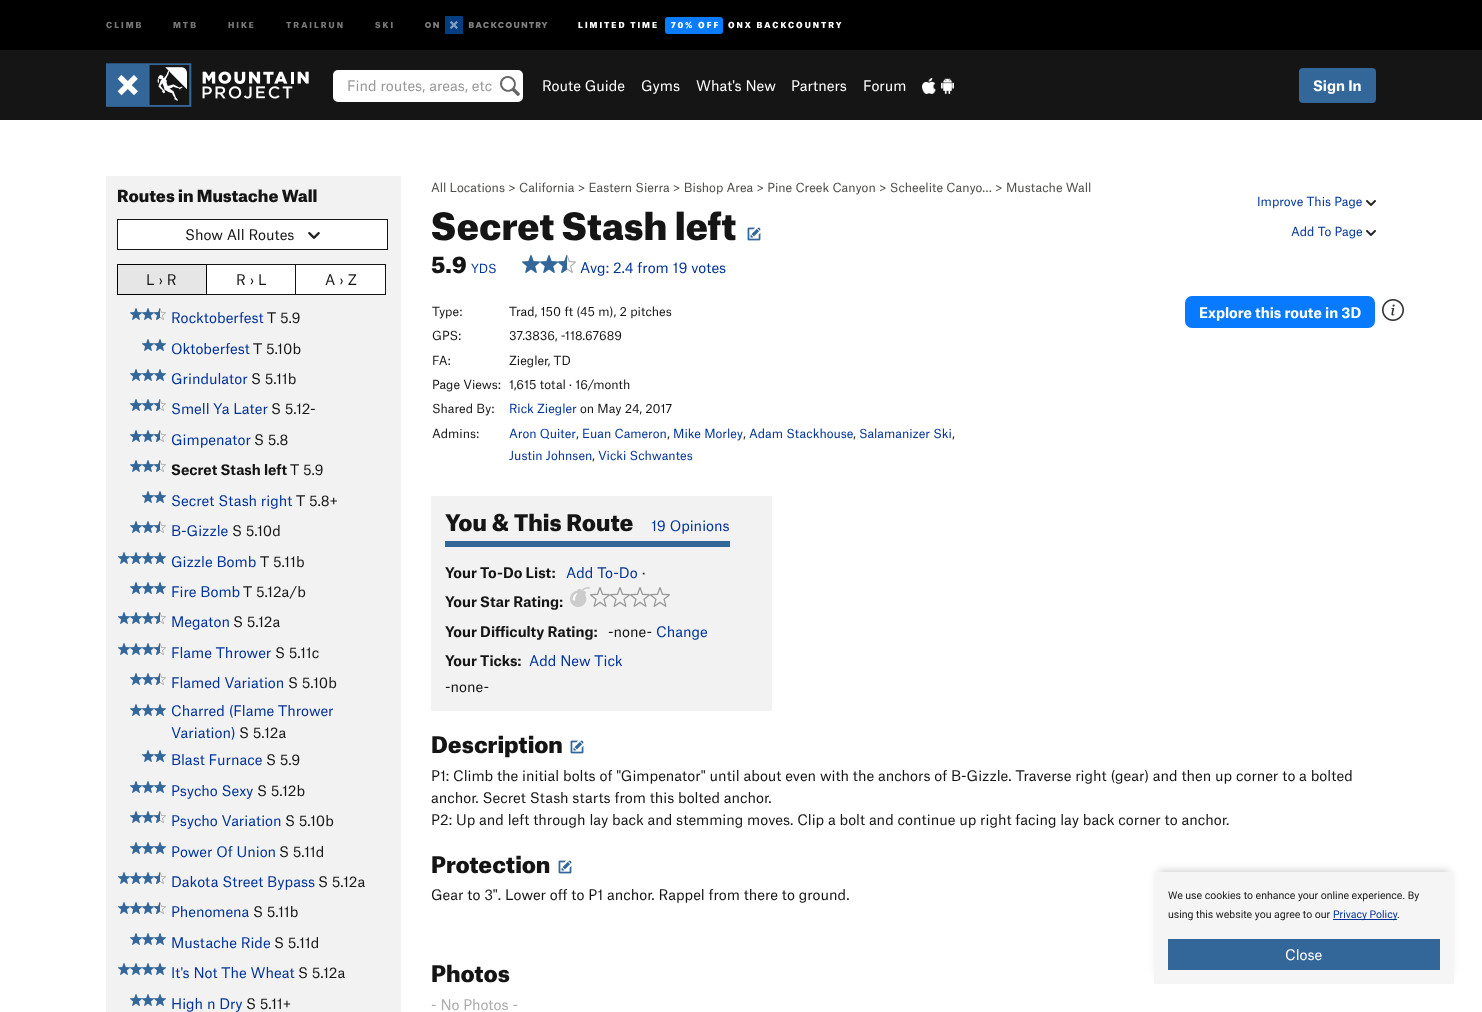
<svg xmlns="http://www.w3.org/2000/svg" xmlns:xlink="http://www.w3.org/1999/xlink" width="1482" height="1012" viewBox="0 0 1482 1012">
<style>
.cls-1{font:900 8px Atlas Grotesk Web;letter-spacing:2px;fill:#777777}
.cls-2{font:900 8px Atlas Grotesk Web;letter-spacing:2px;fill:#ffffff}
.cls-3{font:14px Atlas Grotesk Web;fill:#999999}
.cls-4{font:14px Atlas Grotesk Web;fill:#ffffff}
.cls-5{font:bold 14px Atlas Grotesk Web;fill:#ffffff}
.cls-6{font:900 16px Atlas Grotesk Web;fill:#151515}
.cls-7{font:14px Atlas Grotesk Web;fill:#151515}
.cls-8{font:14px Atlas Grotesk Web;fill:#003399}
.cls-9{font:bold 14px Atlas Grotesk Web;fill:#151515}
.cls-10{font:12px Atlas Grotesk Web;fill:#4e4d49}
.cls-11{font:900 36px Atlas Grotesk Web;fill:#151515}
.cls-12{font:12px Atlas Grotesk Web;fill:#003399}
.cls-13{font:900 22px Atlas Grotesk Web;fill:#151515}
.cls-14{font:12px Atlas Grotesk Web;fill:#151515}
.cls-15{font:14px Atlas Grotesk Web;fill:#acacac}
.cls-16{font:10.5px Roboto;fill:#151515}
.cls-17{font:10.5px Roboto;fill:#003399}
</style>
<rect width="100%" height="100%" fill="#ffffff"/>
<rect fill="#151515" x="0" y="50" width="1482" height="70"/>
<rect fill="#000000" x="0" y="0" width="1482" height="50"/>
<image xlink:href="image0.png" x="425" y="16" width="123" height="18"/>
<rect fill="#087bff" x="665" y="17" width="58" height="17" rx="3"/>
<image xlink:href="image1.png" x="106" y="63" width="203" height="44"/>
<rect fill="#ffffff" x="333" y="70" width="190" height="32" rx="5"/>
<image xlink:href="image2.png" x="500" y="76" width="20" height="20"/>
<image xlink:href="image3.png" x="922" y="78" width="14" height="16"/>
<image xlink:href="image4.png" x="941" y="78" width="13" height="16"/>
<rect fill="#336799" x="1299" y="68" width="77" height="35" rx="4"/>
<rect fill="#f2f2f2" x="106" y="176" width="295" height="836"/>
<rect fill="#ffffff" stroke="#151515" x="117.5" y="219.5" width="270" height="30"/>
<image xlink:href="image5.png" x="308" y="232" width="12" height="7"/>
<rect fill="#ffffff" stroke="#151515" x="206.5" y="264.5" width="89" height="30"/>
<rect fill="#e6e6e6" stroke="#000000" x="117.5" y="264.5" width="89" height="30"/>
<rect fill="#ffffff" stroke="#151515" x="295.5" y="264.5" width="90" height="30"/>
<image xlink:href="image6.png" x="130" y="308" width="12" height="12"/>
<image xlink:href="image6.png" x="142" y="308" width="12" height="12"/>
<image xlink:href="image7.png" x="154" y="308" width="12" height="12"/>
<image xlink:href="image6.png" x="142" y="339" width="12" height="12"/>
<image xlink:href="image6.png" x="154" y="339" width="12" height="12"/>
<image xlink:href="image6.png" x="130" y="369" width="12" height="12"/>
<image xlink:href="image6.png" x="142" y="369" width="12" height="12"/>
<image xlink:href="image6.png" x="154" y="369" width="12" height="12"/>
<image xlink:href="image6.png" x="130" y="399" width="12" height="12"/>
<image xlink:href="image6.png" x="142" y="399" width="12" height="12"/>
<image xlink:href="image7.png" x="154" y="399" width="12" height="12"/>
<image xlink:href="image6.png" x="130" y="430" width="12" height="12"/>
<image xlink:href="image6.png" x="142" y="430" width="12" height="12"/>
<image xlink:href="image7.png" x="154" y="430" width="12" height="12"/>
<image xlink:href="image6.png" x="130" y="460" width="12" height="12"/>
<image xlink:href="image6.png" x="142" y="460" width="12" height="12"/>
<image xlink:href="image7.png" x="154" y="460" width="12" height="12"/>
<image xlink:href="image6.png" x="142" y="491" width="12" height="12"/>
<image xlink:href="image6.png" x="154" y="491" width="12" height="12"/>
<image xlink:href="image6.png" x="130" y="521" width="12" height="12"/>
<image xlink:href="image6.png" x="142" y="521" width="12" height="12"/>
<image xlink:href="image7.png" x="154" y="521" width="12" height="12"/>
<image xlink:href="image6.png" x="118" y="552" width="12" height="12"/>
<image xlink:href="image6.png" x="130" y="552" width="12" height="12"/>
<image xlink:href="image6.png" x="142" y="552" width="12" height="12"/>
<image xlink:href="image6.png" x="154" y="552" width="12" height="12"/>
<image xlink:href="image6.png" x="130" y="582" width="12" height="12"/>
<image xlink:href="image6.png" x="142" y="582" width="12" height="12"/>
<image xlink:href="image6.png" x="154" y="582" width="12" height="12"/>
<image xlink:href="image6.png" x="118" y="612" width="12" height="12"/>
<image xlink:href="image6.png" x="130" y="612" width="12" height="12"/>
<image xlink:href="image6.png" x="142" y="612" width="12" height="12"/>
<image xlink:href="image7.png" x="154" y="612" width="12" height="12"/>
<image xlink:href="image6.png" x="118" y="643" width="12" height="12"/>
<image xlink:href="image6.png" x="130" y="643" width="12" height="12"/>
<image xlink:href="image6.png" x="142" y="643" width="12" height="12"/>
<image xlink:href="image7.png" x="154" y="643" width="12" height="12"/>
<image xlink:href="image6.png" x="130" y="673" width="12" height="12"/>
<image xlink:href="image6.png" x="142" y="673" width="12" height="12"/>
<image xlink:href="image7.png" x="154" y="673" width="12" height="12"/>
<image xlink:href="image6.png" x="130" y="704" width="12" height="12"/>
<image xlink:href="image6.png" x="142" y="704" width="12" height="12"/>
<image xlink:href="image6.png" x="154" y="704" width="12" height="12"/>
<image xlink:href="image6.png" x="142" y="750" width="12" height="12"/>
<image xlink:href="image6.png" x="154" y="750" width="12" height="12"/>
<image xlink:href="image6.png" x="130" y="781" width="12" height="12"/>
<image xlink:href="image6.png" x="142" y="781" width="12" height="12"/>
<image xlink:href="image6.png" x="154" y="781" width="12" height="12"/>
<image xlink:href="image6.png" x="130" y="811" width="12" height="12"/>
<image xlink:href="image6.png" x="142" y="811" width="12" height="12"/>
<image xlink:href="image7.png" x="154" y="811" width="12" height="12"/>
<image xlink:href="image6.png" x="130" y="842" width="12" height="12"/>
<image xlink:href="image6.png" x="142" y="842" width="12" height="12"/>
<image xlink:href="image6.png" x="154" y="842" width="12" height="12"/>
<image xlink:href="image6.png" x="118" y="872" width="12" height="12"/>
<image xlink:href="image6.png" x="130" y="872" width="12" height="12"/>
<image xlink:href="image6.png" x="142" y="872" width="12" height="12"/>
<image xlink:href="image7.png" x="154" y="872" width="12" height="12"/>
<image xlink:href="image6.png" x="118" y="902" width="12" height="12"/>
<image xlink:href="image6.png" x="130" y="902" width="12" height="12"/>
<image xlink:href="image6.png" x="142" y="902" width="12" height="12"/>
<image xlink:href="image7.png" x="154" y="902" width="12" height="12"/>
<image xlink:href="image6.png" x="130" y="933" width="12" height="12"/>
<image xlink:href="image6.png" x="142" y="933" width="12" height="12"/>
<image xlink:href="image6.png" x="154" y="933" width="12" height="12"/>
<image xlink:href="image6.png" x="118" y="963" width="12" height="12"/>
<image xlink:href="image6.png" x="130" y="963" width="12" height="12"/>
<image xlink:href="image6.png" x="142" y="963" width="12" height="12"/>
<image xlink:href="image6.png" x="154" y="963" width="12" height="12"/>
<image xlink:href="image6.png" x="130" y="994" width="12" height="12"/>
<image xlink:href="image6.png" x="142" y="994" width="12" height="12"/>
<image xlink:href="image6.png" x="154" y="994" width="12" height="12"/>
<image xlink:href="image8.png" x="747" y="227" width="14" height="14"/>
<image xlink:href="image9.png" x="1366" y="200" width="10" height="6"/>
<image xlink:href="image9.png" x="1366" y="230" width="10" height="6"/>
<image xlink:href="image10.png" x="522" y="255" width="18" height="18"/>
<image xlink:href="image10.png" x="540" y="255" width="18" height="18"/>
<image xlink:href="image11.png" x="558" y="255" width="18" height="18"/>
<rect fill="#f2f2f2" x="431" y="496" width="341" height="215"/>
<rect fill="#336799" x="445" y="541" width="285" height="6"/>
<image xlink:href="image12.png" x="570" y="587" width="20" height="20"/>
<image xlink:href="image13.png" x="590" y="587" width="20" height="20"/>
<image xlink:href="image13.png" x="610" y="587" width="20" height="20"/>
<image xlink:href="image13.png" x="630" y="587" width="20" height="20"/>
<image xlink:href="image13.png" x="650" y="587" width="20" height="20"/>
<rect fill="#087aff" x="1185" y="296" width="190" height="32" rx="7"/>
<image xlink:href="image14.png" x="1382" y="299" width="22" height="22"/>
<image xlink:href="image8.png" x="570" y="740" width="14" height="14"/>
<image xlink:href="image8.png" x="558" y="860" width="14" height="14"/>
<rect fill="#000000" fill-opacity="0.25" filter="blur(5px)" x="1159" y="872" width="290" height="102"/>
<rect fill="#f5f5f5" x="1154" y="872" width="300" height="112"/>
<rect fill="#003399" x="1333" y="919" width="64" height="1"/>
<rect fill="#336799" x="1168" y="939" width="272" height="31"/>
<text class="cls-1" x="106" y="28">CLIMB</text>
<text class="cls-1" x="173" y="28">MTB</text>
<text class="cls-1" x="228" y="28">HIKE</text>
<text class="cls-1" x="286" y="28">TRAILRUN</text>
<text class="cls-1" x="375" y="28">SKI</text>
<text class="cls-2" x="578" y="28">LIMITED TIME</text>
<text class="cls-2" x="671" y="28">70% OFF</text>
<text class="cls-2" x="728" y="28">ONX BACKCOUNTRY</text>
<text class="cls-3" x="347" y="91">Find routes, areas, etc</text>
<text class="cls-4" x="542" y="91">Route Guide</text>
<text class="cls-4" x="641" y="91">Gyms</text>
<text class="cls-4" x="696" y="91">What's New</text>
<text class="cls-4" x="791" y="91">Partners</text>
<text class="cls-4" x="863" y="91">Forum</text>
<text class="cls-5" x="1313" y="91">Sign In</text>
<text class="cls-6" x="117" y="202">Routes in Mustache Wall</text>
<text class="cls-7" x="185" y="240">Show All Routes</text>
<text class="cls-7" x="146" y="285">L › R</text>
<text class="cls-7" x="236" y="285">R › L</text>
<text class="cls-7" x="325" y="285">A › Z</text>
<text class="cls-8" x="171" y="323">Rocktoberfest</text>
<text class="cls-7" x="267" y="323">T 5.9</text>
<text class="cls-8" x="171" y="354">Oktoberfest</text>
<text class="cls-7" x="253" y="354">T 5.10b</text>
<text class="cls-8" x="171" y="384">Grindulator</text>
<text class="cls-7" x="251" y="384">S 5.11b</text>
<text class="cls-8" x="171" y="414">Smell Ya Later</text>
<text class="cls-7" x="271" y="414">S 5.12-</text>
<text class="cls-8" x="171" y="445">Gimpenator</text>
<text class="cls-7" x="254" y="445">S 5.8</text>
<text class="cls-9" x="171" y="475">Secret Stash left</text>
<text class="cls-7" x="290" y="475">T 5.9</text>
<text class="cls-8" x="171" y="506">Secret Stash right</text>
<text class="cls-7" x="296" y="506">T 5.8+</text>
<text class="cls-8" x="171" y="536">B-Gizzle</text>
<text class="cls-7" x="232" y="536">S 5.10d</text>
<text class="cls-8" x="171" y="567">Gizzle Bomb</text>
<text class="cls-7" x="260" y="567">T 5.11b</text>
<text class="cls-8" x="171" y="597">Fire Bomb</text>
<text class="cls-7" x="243" y="597">T 5.12a/b</text>
<text class="cls-8" x="171" y="627">Megaton</text>
<text class="cls-7" x="233" y="627">S 5.12a</text>
<text class="cls-8" x="171" y="658">Flame Thrower</text>
<text class="cls-7" x="275" y="658">S 5.11c</text>
<text class="cls-8" x="171" y="688">Flamed Variation</text>
<text class="cls-7" x="288" y="688">S 5.10b</text>
<text class="cls-8"><tspan x="171" y="716">Charred (Flame Thrower</tspan><tspan x="171" y="738">Variation)</tspan></text>
<text class="cls-7" x="239" y="738">S 5.12a</text>
<text class="cls-8" x="171" y="765">Blast Furnace</text>
<text class="cls-7" x="266" y="765">S 5.9</text>
<text class="cls-8" x="171" y="796">Psycho Sexy</text>
<text class="cls-7" x="257" y="796">S 5.12b</text>
<text class="cls-8" x="171" y="826">Psycho Variation</text>
<text class="cls-7" x="285" y="826">S 5.10b</text>
<text class="cls-8" x="171" y="857">Power Of Union</text>
<text class="cls-7" x="279" y="857">S 5.11d</text>
<text class="cls-8" x="171" y="887">Dakota Street Bypass</text>
<text class="cls-7" x="318" y="887">S 5.12a</text>
<text class="cls-8" x="171" y="917">Phenomena</text>
<text class="cls-7" x="253" y="917">S 5.11b</text>
<text class="cls-8" x="171" y="948">Mustache Ride</text>
<text class="cls-7" x="274" y="948">S 5.11d</text>
<text class="cls-8" x="171" y="978">It's Not The Wheat</text>
<text class="cls-7" x="298" y="978">S 5.12a</text>
<text class="cls-8" x="171" y="1009">High n Dry</text>
<text class="cls-7" x="246" y="1009">S 5.11+</text>
<text class="cls-10" x="431" y="192">All Locations &gt; California &gt; Eastern Sierra &gt; Bishop Area &gt; Pine Creek Canyon &gt; Scheelite Canyo… &gt; Mustache Wall</text>
<text class="cls-11" x="431" y="240">Secret Stash left</text>
<text class="cls-12" x="1257" y="206">Improve This Page</text>
<text class="cls-12" x="1291" y="236">Add To Page</text>
<text class="cls-13" x="431" y="273">5.9</text>
<text class="cls-12" x="471" y="273">YDS</text>
<text class="cls-8" x="580" y="273">Avg: 2.4 from 19 votes</text>
<text class="cls-14" x="432" y="316">Type:</text>
<text class="cls-14" x="509" y="316">Trad, 150 ft (45 m), 2 pitches</text>
<text class="cls-14" x="432" y="340">GPS:</text>
<text class="cls-14" x="509" y="340">37.3836, -118.67689</text>
<text class="cls-14" x="432" y="365">FA:</text>
<text class="cls-14" x="509" y="365">Ziegler, TD</text>
<text class="cls-14" x="432" y="389">Page Views:</text>
<text class="cls-14" x="509" y="389">1,615 total · 16/month</text>
<text class="cls-14" x="432" y="413">Shared By:</text>
<text class="cls-12" x="509" y="413">Rick Ziegler</text>
<text class="cls-14" x="580" y="413">on May 24, 2017</text>
<text class="cls-14" x="432" y="438">Admins:</text>
<text class="cls-12" x="509" y="438">Aron Quiter</text>
<text class="cls-14" x="576" y="438">,</text>
<text class="cls-12" x="582" y="438">Euan Cameron</text>
<text class="cls-14" x="667" y="438">,</text>
<text class="cls-12" x="673" y="438">Mike Morley</text>
<text class="cls-14" x="743" y="438">,</text>
<text class="cls-12" x="749" y="438">Adam Stackhouse</text>
<text class="cls-14" x="853" y="438">,</text>
<text class="cls-12" x="859" y="438">Salamanizer Ski</text>
<text class="cls-14" x="952" y="438">,</text>
<text class="cls-12" x="509" y="460">Justin Johnsen</text>
<text class="cls-14" x="592" y="460">,</text>
<text class="cls-12" x="598" y="460">Vicki Schwantes</text>
<text class="cls-13" x="445" y="531">You &amp; This Route</text>
<text class="cls-8" x="651" y="531">19 Opinions</text>
<text class="cls-9" x="445" y="578">Your To-Do List:</text>
<text class="cls-8" x="566" y="578">Add To-Do</text>
<text class="cls-7" x="642" y="578">·</text>
<text class="cls-9" x="445" y="607">Your Star Rating:</text>
<text class="cls-9" x="445" y="637">Your Difficulty Rating:</text>
<text class="cls-7" x="608" y="637">-none-</text>
<text class="cls-8" x="656" y="637">Change</text>
<text class="cls-9" x="445" y="666">Your Ticks:</text>
<text class="cls-8" x="529" y="666">Add New Tick</text>
<text class="cls-7" x="445" y="692">-none-</text>
<text class="cls-5" x="1199" y="318">Explore this route in 3D</text>
<text class="cls-13" x="431" y="753">Description</text>
<text class="cls-7"><tspan x="431" y="781">P1: Climb the initial bolts of "Gimpenator" until about even with the anchors of B-Gizzle. Traverse right (gear) and then up corner to a bolted</tspan><tspan x="431" y="803">anchor. Secret Stash starts from this bolted anchor.</tspan><tspan x="431" y="825">P2: Up and left through lay back and stemming moves. Clip a bolt and continue up right facing lay back corner to anchor.</tspan></text>
<text class="cls-13" x="431" y="873">Protection</text>
<text class="cls-7" x="431" y="900">Gear to 3". Lower off to P1 anchor. Rappel from there to ground.</text>
<text class="cls-13" x="431" y="982">Photos</text>
<text class="cls-15" x="431" y="1010">- No Photos -</text>
<text class="cls-16"><tspan x="1168" y="899">We use cookies to enhance your online experience. By</tspan><tspan x="1168" y="918">using this website you agree to our</tspan></text>
<text class="cls-17" x="1333" y="918">Privacy Policy</text>
<text class="cls-16" x="1397" y="918">.</text>
<text class="cls-4" x="1285" y="960">Close</text>
</svg>
